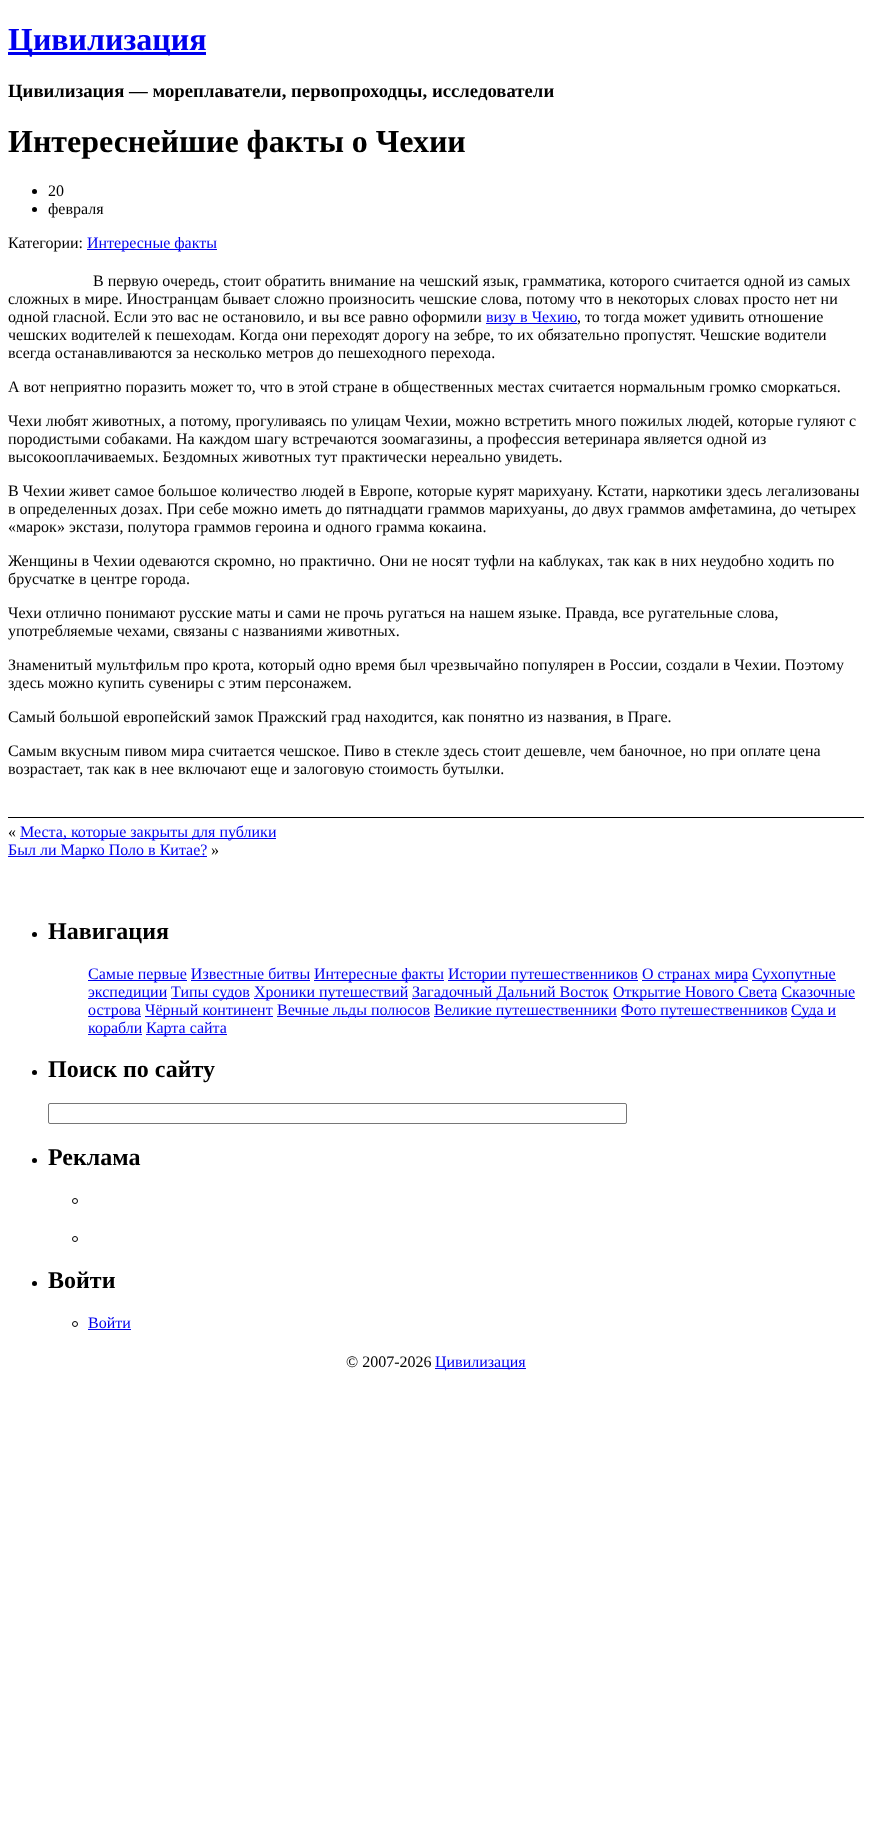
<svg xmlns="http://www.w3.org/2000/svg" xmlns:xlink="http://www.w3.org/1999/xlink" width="872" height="1830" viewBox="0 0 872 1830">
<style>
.cls-1{font:bold 32px Liberation Serif;fill:#0000ee}
.cls-2{font:bold 18.75px Liberation Serif;fill:#000000}
.cls-3{font:bold 32px Liberation Serif;fill:#000000}
.cls-4{font:16px Liberation Serif;fill:#000000}
.cls-5{font:16px Liberation Serif;fill:#0000ee}
.cls-6{font:bold 24px Liberation Serif;fill:#000000}
</style>
<rect width="100%" height="100%" fill="#ffffff"/>
<rect fill="#0000ee" x="8" y="52" width="198" height="3"/>
<circle fill="#000000" cx="34.5" cy="191.5" r="2.5"/>
<circle fill="#000000" cx="34.5" cy="209.5" r="2.5"/>
<rect fill="#0000ee" x="87" y="249" width="130" height="1"/>
<rect fill="#0000ee" x="486" y="323" width="91" height="1"/>
<rect fill="#000000" x="8" y="817" width="856" height="1"/>
<rect fill="#0000ee" x="20" y="838" width="256" height="1"/>
<rect fill="#0000ee" x="8" y="856" width="199" height="1"/>
<circle fill="#000000" cx="34.5" cy="934.5" r="2.5"/>
<rect fill="#0000ee" x="88" y="980" width="99" height="1"/>
<rect fill="#0000ee" x="314" y="980" width="130" height="1"/>
<rect fill="#0000ee" x="448" y="980" width="190" height="1"/>
<rect fill="#0000ee" x="642" y="980" width="106" height="1"/>
<rect fill="#0000ee" x="752" y="980" width="84" height="1"/>
<rect fill="#0000ee" x="191" y="980" width="119" height="1"/>
<rect fill="#0000ee" x="88" y="998" width="79" height="1"/>
<rect fill="#0000ee" x="171" y="998" width="79" height="1"/>
<rect fill="#0000ee" x="254" y="998" width="154" height="1"/>
<rect fill="#0000ee" x="412" y="998" width="197" height="1"/>
<rect fill="#0000ee" x="613" y="998" width="164" height="1"/>
<rect fill="#0000ee" x="781" y="998" width="74" height="1"/>
<rect fill="#0000ee" x="88" y="1016" width="53" height="1"/>
<rect fill="#0000ee" x="145" y="1016" width="128" height="1"/>
<rect fill="#0000ee" x="277" y="1016" width="153" height="1"/>
<rect fill="#0000ee" x="434" y="1016" width="183" height="1"/>
<rect fill="#0000ee" x="621" y="1016" width="166" height="1"/>
<rect fill="#0000ee" x="791" y="1016" width="45" height="1"/>
<rect fill="#0000ee" x="88" y="1034" width="54" height="1"/>
<rect fill="#0000ee" x="146" y="1034" width="81" height="1"/>
<circle fill="#000000" cx="34.5" cy="1072.5" r="2.5"/>
<rect fill="none" stroke="#767676" x="48.5" y="1103.5" width="578" height="20" rx="1.5"/>
<circle fill="#000000" cx="34.5" cy="1160.5" r="2.5"/>
<circle fill="none" stroke="#000000" cx="75" cy="1201" r="2.5"/>
<circle fill="none" stroke="#000000" cx="75" cy="1239" r="2.5"/>
<circle fill="#000000" cx="34.5" cy="1283.5" r="2.5"/>
<circle fill="none" stroke="#000000" cx="75" cy="1324" r="2.5"/>
<rect fill="#0000ee" x="88" y="1329" width="43" height="1"/>
<rect fill="#0000ee" x="435" y="1368" width="91" height="1"/>
<text class="cls-1" x="8" y="50">Цивилизация</text>
<text class="cls-2" x="8" y="97">Цивилизация — мореплаватели, первопроходцы, исследователи</text>
<text class="cls-3" x="8" y="152">Интереснейшие факты о Чехии</text>
<text class="cls-4"><tspan x="48" y="196">20</tspan><tspan x="48" y="214">февраля</tspan></text>
<text class="cls-4" x="8" y="248">Категории:</text>
<text class="cls-5" x="87" y="248">Интересные факты</text>
<text class="cls-4" x="93" y="286">В первую очередь, стоит обратить внимание на чешский язык, грамматика, которого считается одной из самых</text>
<text class="cls-4"><tspan x="8" y="304">сложных в мире. Иностранцам бывает сложно произносить чешские слова, потому что в некоторых словах просто нет ни</tspan><tspan x="8" y="322">одной гласной. Если это вас не остановило, и вы все равно оформили</tspan></text>
<text class="cls-5" x="486" y="322">визу в Чехию</text>
<text class="cls-4" x="577" y="322">, то тогда может удивить отношение</text>
<text class="cls-4"><tspan x="8" y="340">чешских водителей к пешеходам. Когда они переходят дорогу на зебре, то их обязательно пропустят. Чешские водители</tspan><tspan x="8" y="358">всегда останавливаются за несколько метров до пешеходного перехода.</tspan></text>
<text class="cls-4" x="8" y="392">А вот неприятно поразить может то, что в этой стране в общественных местах считается нормальным громко сморкаться.</text>
<text class="cls-4"><tspan x="8" y="426">Чехи любят животных, а потому, прогуливаясь по улицам Чехии, можно встретить много пожилых людей, которые гуляют с</tspan><tspan x="8" y="444">породистыми собаками. На каждом шагу встречаются зоомагазины, а профессия ветеринара является одной из</tspan><tspan x="8" y="462">высокооплачиваемых. Бездомных животных тут практически нереально увидеть.</tspan></text>
<text class="cls-4"><tspan x="8" y="496">В Чехии живет самое большое количество людей в Европе, которые курят марихуану. Кстати, наркотики здесь легализованы</tspan><tspan x="8" y="514">в определенных дозах. При себе можно иметь до пятнадцати граммов марихуаны, до двух граммов амфетамина, до четырех</tspan><tspan x="8" y="532">«марок» экстази, полутора граммов героина и одного грамма кокаина.</tspan></text>
<text class="cls-4"><tspan x="8" y="566">Женщины в Чехии одеваются скромно, но практично. Они не носят туфли на каблуках, так как в них неудобно ходить по</tspan><tspan x="8" y="584">брусчатке в центре города.</tspan></text>
<text class="cls-4"><tspan x="8" y="618">Чехи отлично понимают русские маты и сами не прочь ругаться на нашем языке. Правда, все ругательные слова,</tspan><tspan x="8" y="636">употребляемые чехами, связаны с названиями животных.</tspan></text>
<text class="cls-4"><tspan x="8" y="670">Знаменитый мультфильм про крота, который одно время был чрезвычайно популярен в России, создали в Чехии. Поэтому</tspan><tspan x="8" y="688">здесь можно купить сувениры с этим персонажем.</tspan></text>
<text class="cls-4" x="8" y="722">Самый большой европейский замок Пражский град находится, как понятно из названия, в Праге.</text>
<text class="cls-4"><tspan x="8" y="756">Самым вкусным пивом мира считается чешское. Пиво в стекле здесь стоит дешевле, чем баночное, но при оплате цена</tspan><tspan x="8" y="774">возрастает, так как в нее включают еще и залоговую стоимость бутылки.</tspan></text>
<text class="cls-4" x="8" y="837">«</text>
<text class="cls-5" x="20" y="837">Места, которые закрыты для публики</text>
<text class="cls-5" x="8" y="855">Был ли Марко Поло в Китае?</text>
<text class="cls-4" x="211" y="855">»</text>
<text class="cls-6" x="48" y="939">Навигация</text>
<text class="cls-5" x="88" y="979">Самые первые Известные битвы</text>
<text class="cls-5" x="314" y="979">Интересные факты</text>
<text class="cls-5" x="448" y="979">Истории путешественников</text>
<text class="cls-5" x="642" y="979">О странах мира</text>
<text class="cls-5" x="752" y="979">Сухопутные</text>
<text class="cls-5" x="88" y="997">экспедиции</text>
<text class="cls-5" x="171" y="997">Типы судов</text>
<text class="cls-5" x="254" y="997">Хроники путешествий</text>
<text class="cls-5" x="412" y="997">Загадочный Дальний Восток</text>
<text class="cls-5" x="613" y="997">Открытие Нового Света Сказочные</text>
<text class="cls-5" x="88" y="1015">острова</text>
<text class="cls-5" x="145" y="1015">Чёрный континент</text>
<text class="cls-5" x="277" y="1015">Вечные льды полюсов</text>
<text class="cls-5" x="434" y="1015">Великие путешественники</text>
<text class="cls-5" x="621" y="1015">Фото путешественников</text>
<text class="cls-5" x="791" y="1015">Суда и</text>
<text class="cls-5" x="88" y="1033">корабли</text>
<text class="cls-5" x="146" y="1033">Карта сайта</text>
<text class="cls-6" x="48" y="1077">Поиск по сайту</text>
<text class="cls-6" x="48" y="1165">Реклама</text>
<text class="cls-6" x="48" y="1288">Войти</text>
<text class="cls-5" x="88" y="1328">Войти</text>
<text class="cls-4" x="346" y="1367">© 2007-2026</text>
<text class="cls-5" x="435" y="1367">Цивилизация</text>
</svg>
